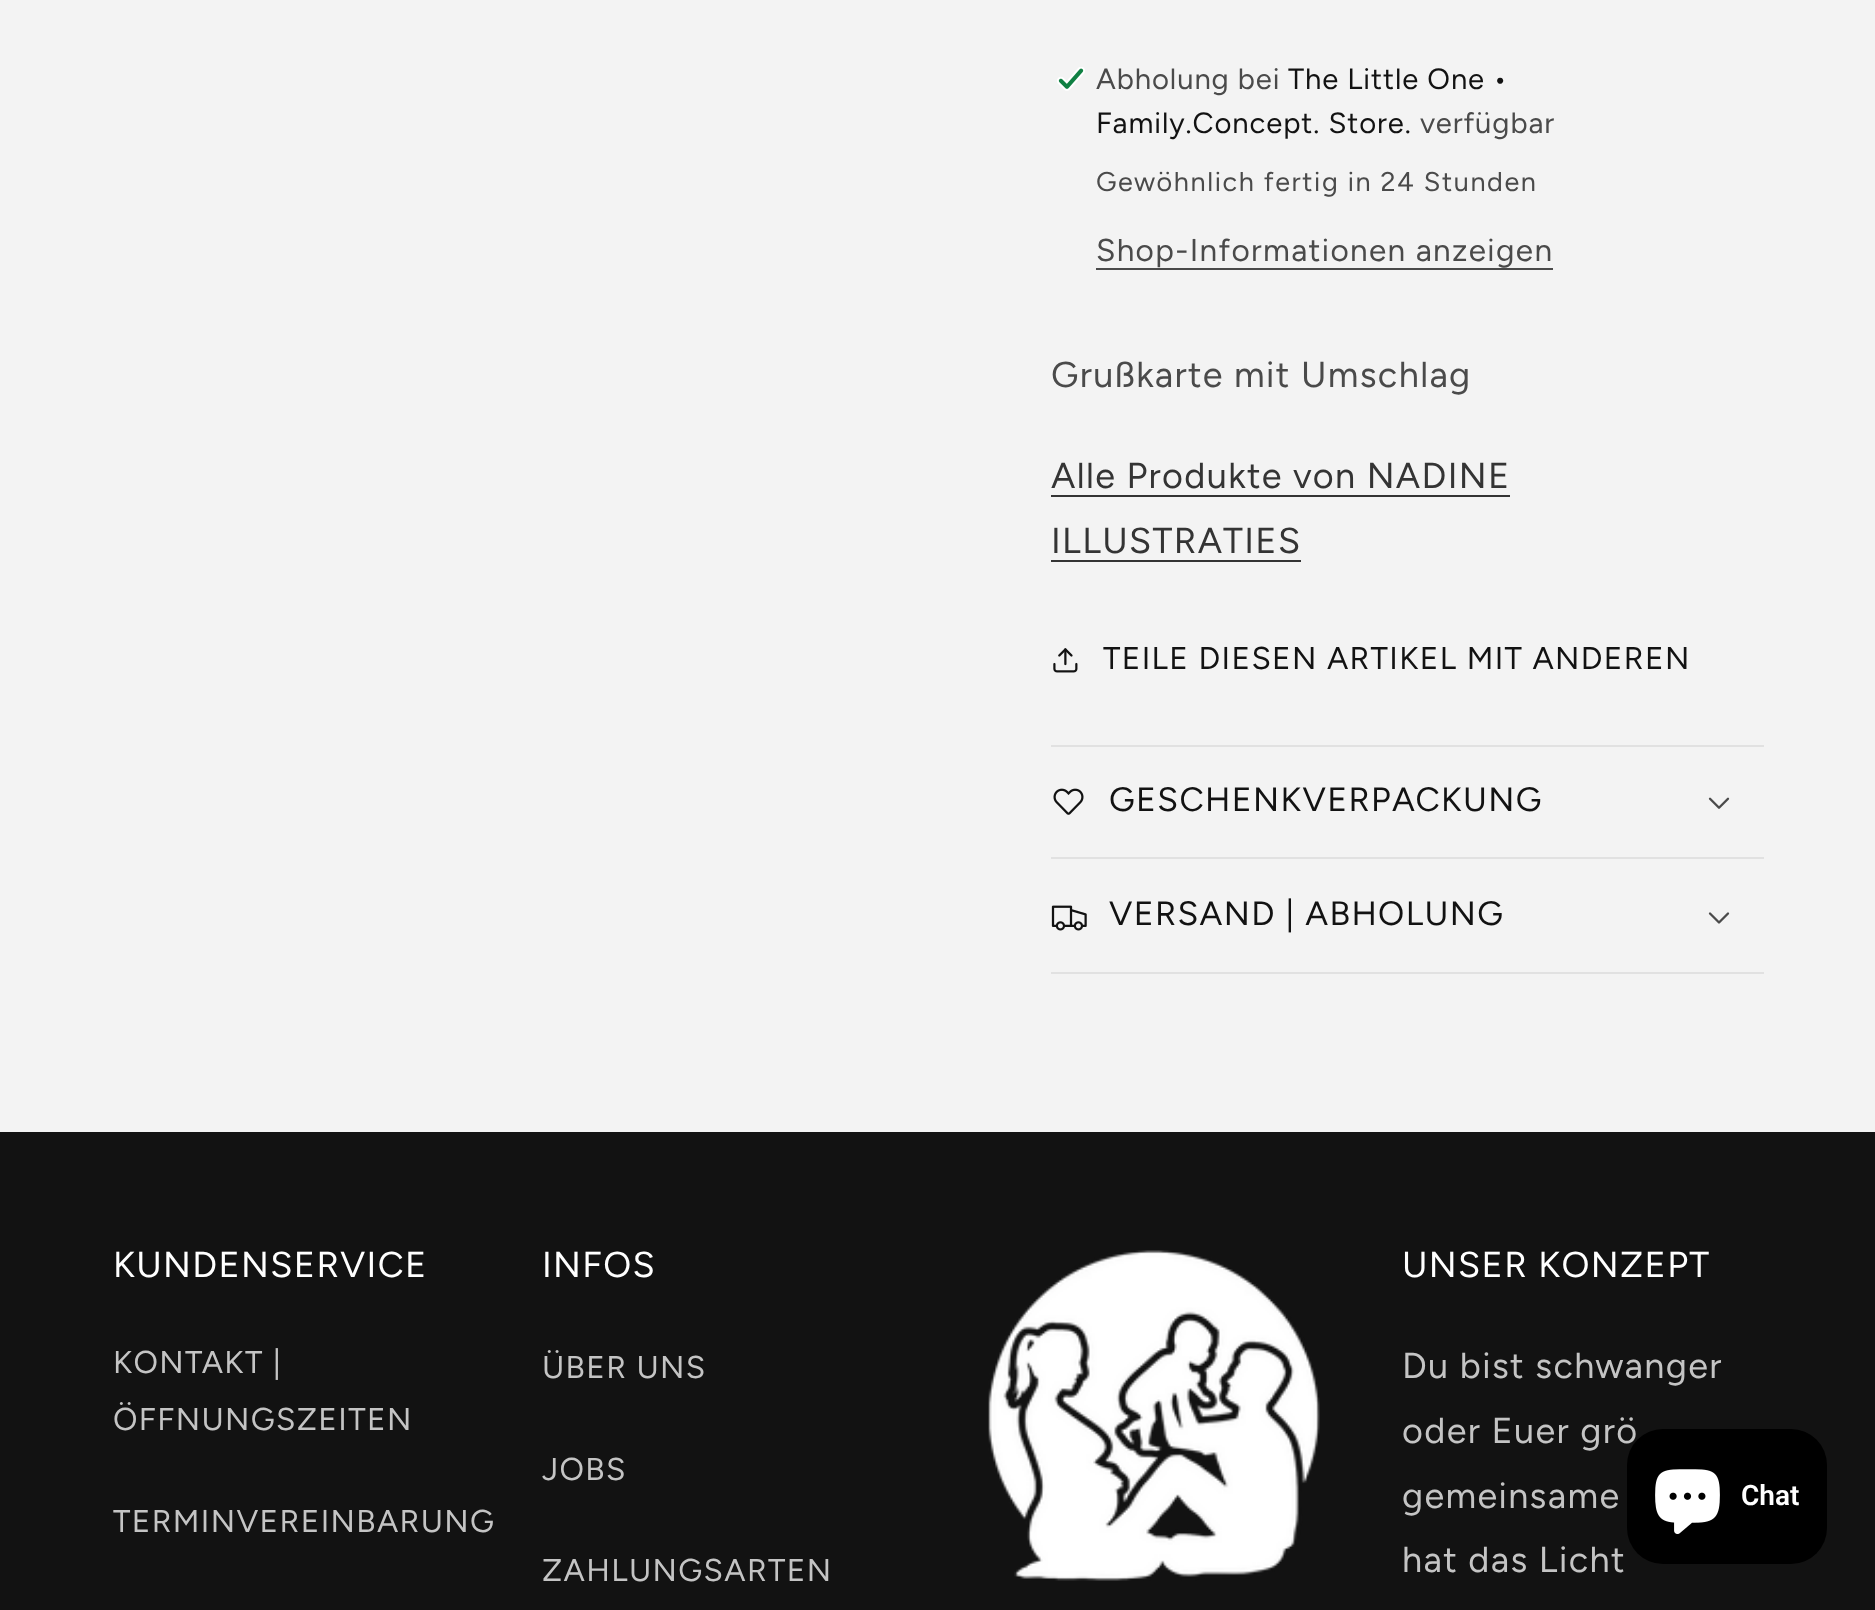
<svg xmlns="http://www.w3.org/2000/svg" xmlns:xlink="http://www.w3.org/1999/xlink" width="1875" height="1610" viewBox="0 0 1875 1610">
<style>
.cls-1{font:29.25px Figtree;letter-spacing:0.9px;fill:#4a4a4a}
.cls-2{font:29.25px Figtree;letter-spacing:0.9px;fill:#121212}
.cls-3{font:27px Figtree;letter-spacing:1.6px;fill:#4a4a4a}
.cls-4{font:31.5px Figtree;letter-spacing:1.35px;fill:#4a4a4a}
.cls-5{font:36px Figtree;letter-spacing:1.35px;fill:#4a4a4a}
.cls-6{font:36px Figtree;letter-spacing:1.35px;fill:#343434}
.cls-7{font:31.5px Figtree;letter-spacing:1.35px;fill:#121212}
.cls-8{font:33.75px Figtree;letter-spacing:1.35px;fill:#121212}
.cls-9{font:36px Figtree;letter-spacing:1.35px;fill:#ffffff}
.cls-10{font:31.5px Figtree;letter-spacing:1.35px;fill:#c4c4c4}
.cls-11{font:36px Figtree;letter-spacing:1.35px;fill:#c4c4c4}
.cls-12{font:600 28px Roboto;fill:#ffffff}
</style>
<rect width="100%" height="100%" fill="#f3f3f3"/>
<image xlink:href="image0.png" x="1057" y="67" width="28" height="24"/>
<rect fill="#4a4a4a" x="1096" y="268" width="457" height="2"/>
<rect fill="#343434" x="1051" y="495" width="459" height="2"/>
<rect fill="#343434" x="1051" y="560" width="250" height="2"/>
<image xlink:href="image1.png" x="1053" y="648" width="25" height="25"/>
<rect fill="#e1e1e1" x="1051" y="745" width="713" height="2"/>
<rect fill="#e1e1e1" x="1051" y="857" width="713" height="2"/>
<image xlink:href="image2.png" x="1053" y="788" width="31" height="27"/>
<image xlink:href="image3.png" x="1708" y="797" width="22" height="12"/>
<rect fill="#e1e1e1" x="1051" y="972" width="713" height="2"/>
<image xlink:href="image4.png" x="1051" y="905" width="36" height="26"/>
<image xlink:href="image5.png" x="1708" y="912" width="22" height="12"/>
<rect fill="#121212" x="0" y="1132" width="1875" height="478"/>
<image xlink:href="image6.png" x="988" y="1250" width="332" height="331"/>
<text class="cls-1" x="1096" y="89">Abholung bei</text>
<text class="cls-2" x="1288" y="89">The Little One •</text>
<text class="cls-2" x="1096" y="133">Family.Concept. Store.</text>
<text class="cls-1" x="1420" y="133">verfügbar</text>
<text class="cls-3" x="1096" y="191">Gewöhnlich fertig in 24 Stunden</text>
<text class="cls-4" x="1096" y="261">Shop-Informationen anzeigen</text>
<text class="cls-5" x="1051" y="387">Grußkarte mit Umschlag</text>
<text class="cls-6"><tspan x="1051" y="488">Alle Produkte von NADINE</tspan><tspan x="1051" y="553">ILLUSTRATIES</tspan></text>
<text class="cls-7" x="1103" y="669">TEILE DIESEN ARTIKEL MIT ANDEREN</text>
<text class="cls-8" x="1109" y="811">GESCHENKVERPACKUNG</text>
<text class="cls-8" x="1109" y="925">VERSAND | ABHOLUNG</text>
<text class="cls-9" x="113" y="1277">KUNDENSERVICE</text>
<text class="cls-10"><tspan x="113" y="1373">KONTAKT |</tspan><tspan x="113" y="1430">ÖFFNUNGSZEITEN</tspan></text>
<text class="cls-10" x="113" y="1532">TERMINVEREINBARUNG</text>
<text class="cls-9" x="542" y="1277">INFOS</text>
<text class="cls-10" x="542" y="1378">ÜBER UNS</text>
<text class="cls-10" x="542" y="1480">JOBS</text>
<text class="cls-10" x="542" y="1581">ZAHLUNGSARTEN</text>
<text class="cls-9" x="1402" y="1277">UNSER KONZEPT</text>
<text class="cls-11"><tspan x="1402" y="1378">Du bist schwanger</tspan><tspan x="1402" y="1443">oder Euer grö</tspan><tspan x="1402" y="1508">gemeinsame</tspan><tspan x="1402" y="1572">hat das Licht</tspan></text>
<rect fill="#000000" x="1627" y="1429" width="200" height="135" rx="36"/>
<image xlink:href="image7.png" x="1655" y="1469" width="65" height="65"/>
<text class="cls-12" x="1741" y="1505">Chat</text>
</svg>
